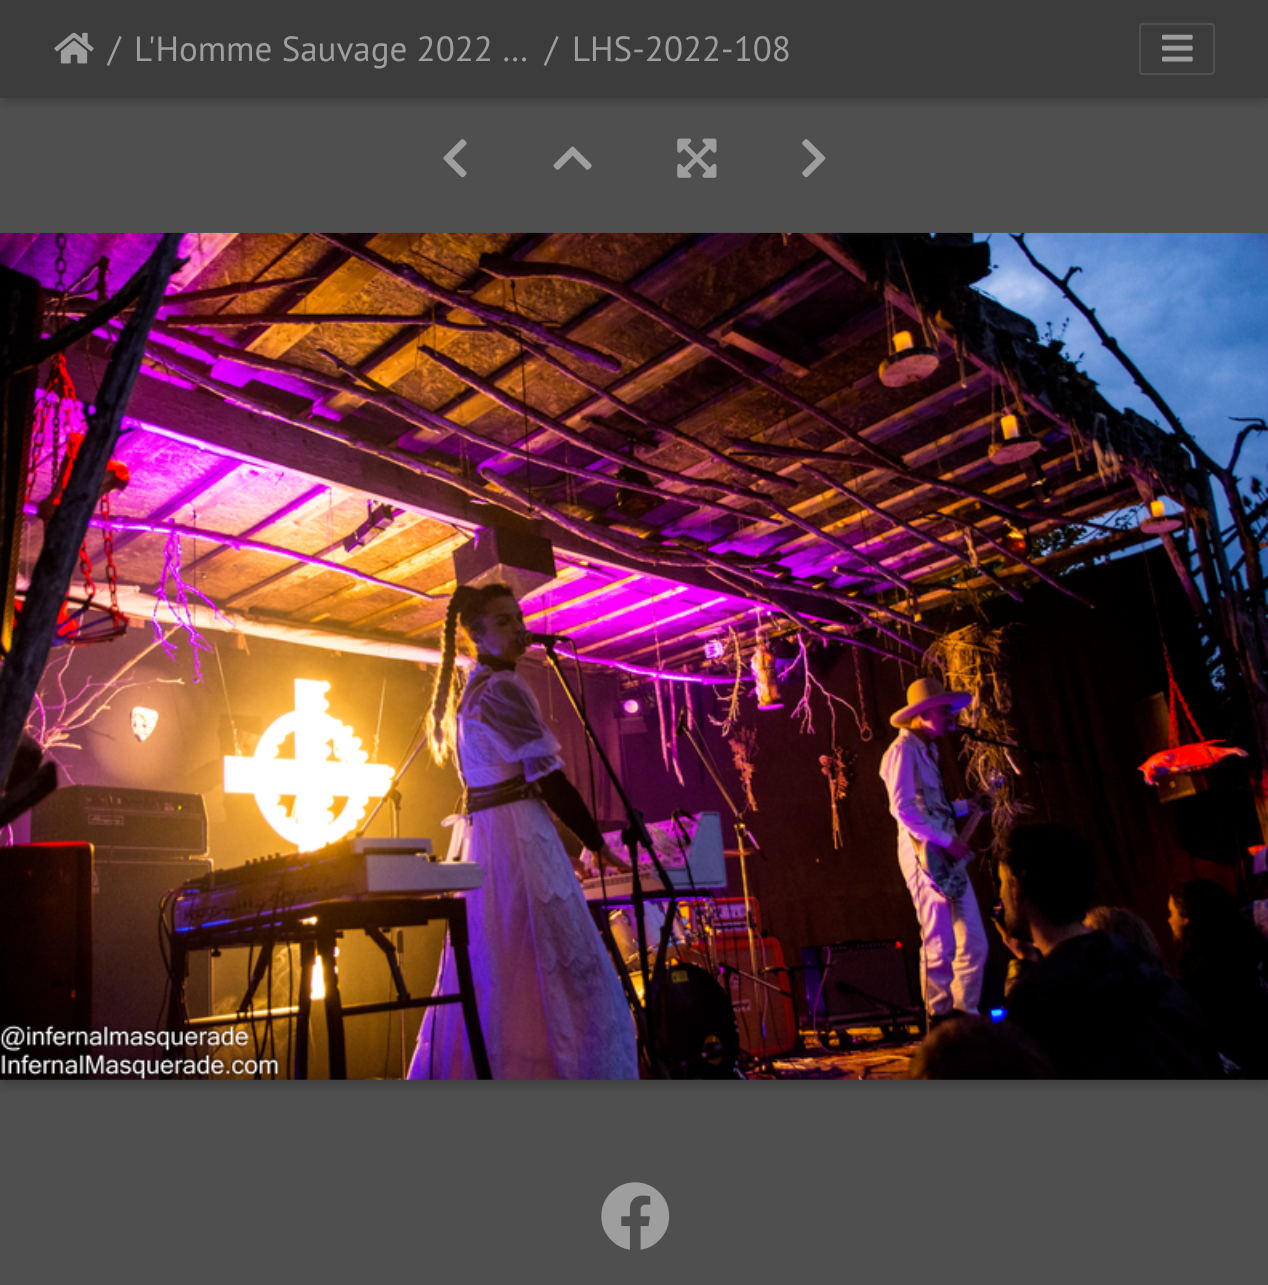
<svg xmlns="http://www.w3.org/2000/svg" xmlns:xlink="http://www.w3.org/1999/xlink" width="1268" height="1285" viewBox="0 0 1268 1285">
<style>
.cls-1{font:35px PT Sans;fill:#9e9e9e}
</style>
<defs>
<clipPath id="clip1"><rect x="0" y="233" width="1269" height="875"/></clipPath>
</defs>
<rect width="100%" height="100%" fill="#4f4f4f"/>
<rect fill="#000000" fill-opacity="0.2" filter="blur(4.5px)" x="2" y="7" width="1265" height="95"/>
<rect fill="#3c3c3c" x="0" y="0" width="1268" height="98"/>
<image xlink:href="image0.png" x="54" y="32" width="40" height="32"/>
<rect fill="none" stroke="#505050" stroke-width="2" x="1140" y="24" width="74" height="50" rx="3"/>
<image xlink:href="image1.png" x="1162" y="34" width="31" height="28"/>
<image xlink:href="image2.png" x="443" y="139" width="24" height="39"/>
<image xlink:href="image3.png" x="553" y="146" width="39" height="24"/>
<image xlink:href="image4.png" x="677" y="138" width="40" height="40"/>
<image xlink:href="image5.png" x="802" y="139" width="24" height="39"/>
<g clip-path="url(#clip1)">
<rect fill="#000000" fill-opacity="0.23" filter="blur(5px)" x="0" y="238" width="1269" height="847"/>
</g>
<image xlink:href="image6.png" x="0" y="232" width="1268" height="848"/>
<image xlink:href="image7.png" x="601" y="1182" width="69" height="68"/>
<text class="cls-1" x="108" y="61">/</text>
<text class="cls-1" x="134" y="61">L'Homme Sauvage 2022 …</text>
<text class="cls-1" x="545" y="61">/</text>
<text class="cls-1" x="572" y="61">LHS-2022-108</text>
</svg>
